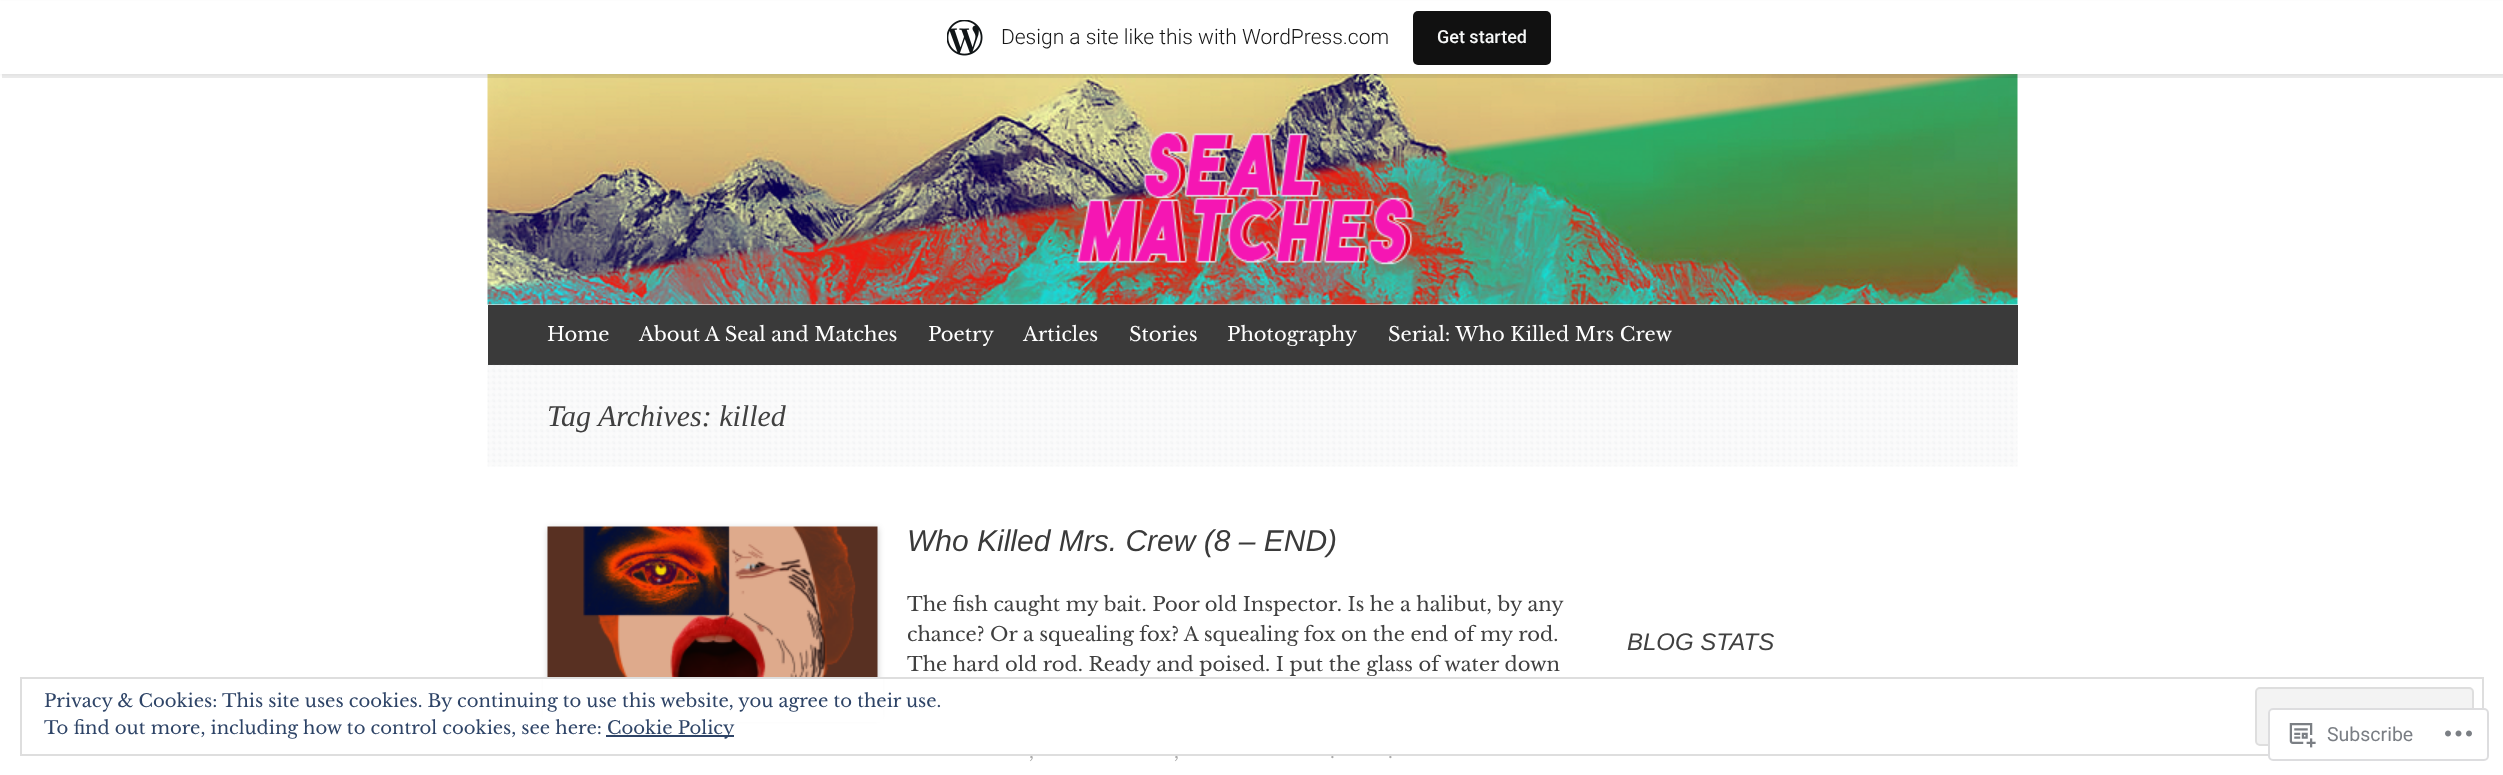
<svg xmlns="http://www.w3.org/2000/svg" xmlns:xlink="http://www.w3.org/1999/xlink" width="2503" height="775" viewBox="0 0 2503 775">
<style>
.cls-1{font:300 21px Roboto;fill:#171717}
.cls-2{font:500 18px Roboto;fill:#f6f7f7}
.cls-3{font:19.5px Libre Baskerville;fill:#ffffff}
.cls-4{font:italic 30px Liberation Serif;fill:#404040}
.cls-5{font:italic 30px Arimo;fill:#3a3a3a}
.cls-6{font:19.5px Libre Baskerville;fill:#404040}
.cls-7{font:18px Libre Baskerville;fill:#aaaaaa}
.cls-8{font:18px Libre Baskerville;fill:#2e4467}
.cls-9{font:italic 24px Arimo;fill:#404040}
.cls-10{font:19.5px Roboto;fill:#7a7e84}
</style>
<rect width="100%" height="100%" fill="#ffffff"/>
<image xlink:href="image1.png" x="487" y="74" width="1531" height="231"/>
<rect fill="#000000" fill-opacity="0.05" filter="blur(1.5px)" x="0" y="2" width="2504" height="73"/>
<path fill="#000000" fill-opacity="0.08" d="M2 74V78H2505V5H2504V74Z"/>
<rect fill="#ffffff" x="0" y="1" width="2503" height="73"/>
<image xlink:href="image0.png" x="947" y="20" width="36" height="36"/>
<rect fill="#111111" x="1413" y="11" width="138" height="54" rx="5"/>
<rect fill="#000000" fill-opacity="0.2" filter="blur(3px)" x="548" y="528" width="330" height="189"/>
<rect fill="#ffffff" x="543" y="679" width="340" height="43"/>
<rect fill="#3a3a3a" x="488" y="305" width="1530" height="60"/>
<image xlink:href="image2.png" x="487" y="364" width="1531" height="103"/>
<rect fill="#3a3a3a" x="533" y="364" width="1153" height="1"/>
<image xlink:href="image3.png" x="547" y="526" width="331" height="151"/>
<text class="cls-1" x="1001" y="44">Design a site like this with WordPress.com</text>
<text class="cls-2" x="1437" y="43">Get started</text>
<text class="cls-3" x="547" y="341">Home</text>
<text class="cls-3" x="639" y="341">About A Seal and Matches</text>
<text class="cls-3" x="928" y="341">Poetry</text>
<text class="cls-3" x="1023" y="341">Articles</text>
<text class="cls-3" x="1129" y="341">Stories</text>
<text class="cls-3" x="1227" y="341">Photography</text>
<text class="cls-3" x="1388" y="341">Serial: Who Killed Mrs Crew</text>
<text class="cls-4" x="547" y="426">Tag Archives: killed</text>
<text class="cls-5" x="907" y="551">Who Killed Mrs. Crew (8 – END)</text>
<text class="cls-6"><tspan x="907" y="611">The fish caught my bait. Poor old Inspector. Is he a halibut, by any</tspan><tspan x="907" y="641">chance? Or a squealing fox? A squealing fox on the end of my rod.</tspan><tspan x="907" y="671">The hard old rod. Ready and poised. I put the glass of water down</tspan></text>
<text class="cls-7" x="1029" y="758">,</text>
<text class="cls-7" x="1174" y="758">,</text>
<text class="cls-7" x="1330" y="758">.</text>
<text class="cls-7" x="1388" y="758">.</text>
<rect fill="none" stroke="#dedede" stroke-width="2" x="21" y="678" width="2462" height="77"/>
<rect fill="#f3f3f3" stroke="#dedede" stroke-width="2" x="2256" y="688" width="217" height="57" rx="4"/>
<rect fill="#2e4467" x="606" y="735" width="128" height="2"/>
<text class="cls-8" x="607" y="734">Cookie Policy</text>
<text class="cls-8" x="44" y="734">To find out more, including how to control cookies, see here:</text>
<text class="cls-8" x="44" y="707">Privacy &amp; Cookies: This site uses cookies. By continuing to use this website, you agree to their use.</text>
<text class="cls-9" x="1627" y="650">BLOG STATS</text>
<rect fill="#ffffff" fill-opacity="0.98" x="2268" y="708" width="221" height="53" rx="5"/>
<rect fill="none" stroke="#dcdcde" stroke-opacity="0.98" stroke-width="2" x="2269" y="709" width="219" height="51" rx="4"/>
<image xlink:href="image4.png" x="2289" y="723" width="27" height="25"/>
<text class="cls-10" x="2327" y="741">Subscribe</text>
<image xlink:href="image5.png" x="2445" y="730" width="27" height="7"/>
</svg>
